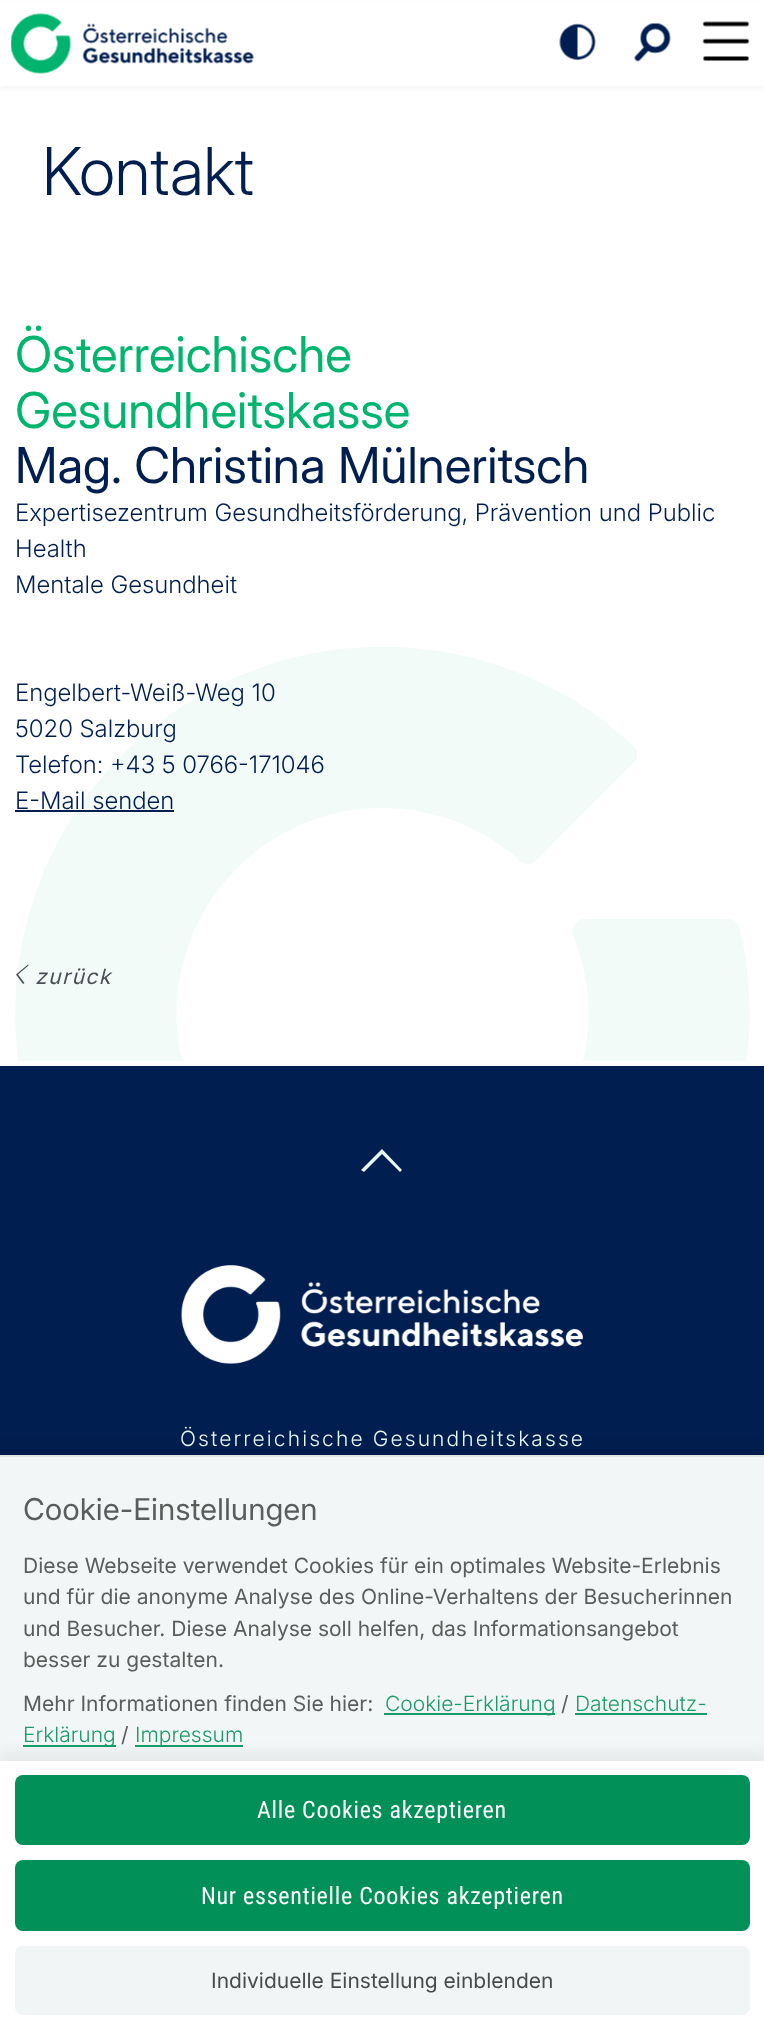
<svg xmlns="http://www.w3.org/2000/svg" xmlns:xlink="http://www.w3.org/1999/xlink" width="764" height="2027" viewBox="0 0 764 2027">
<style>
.cls-1{font:300 66px 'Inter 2';fill:#001e50}
.cls-2{font:49.5px Inter;fill:#00b56e}
.cls-3{font:49.5px Inter;fill:#001e50}
.cls-4{font:300 24px Inter;fill:#001e50}
.cls-5{font:italic 21px Inter;letter-spacing:1.5px;fill:#475256}
.cls-6{font:300 21px 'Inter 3';letter-spacing:2.1px;fill:#e5f7f0}
.cls-7{font:30px 'Inter 3';fill:#5b5c5c}
.cls-8{font:21px 'Inter 2';fill:#5b5c5c}
.cls-9{font:300 21px 'Inter 3';fill:#1a9b69}
.cls-10{font:24px Roboto Condensed;letter-spacing:0.7px;fill:#ffffff}
.cls-11{font:21px 'Inter 2';fill:#494a4a}
</style>
<defs>
<clipPath id="clip1"><rect x="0" y="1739" width="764" height="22"/></clipPath>
</defs>
<rect width="100%" height="100%" fill="#ffffff"/>
<rect fill="#000000" fill-opacity="0.04" filter="blur(2px)" x="0" y="3" width="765" height="86"/>
<rect fill="#ffffff" x="0" y="2" width="764" height="84"/>
<image xlink:href="image0.png" x="11" y="13" width="243" height="61"/>
<image xlink:href="image1.png" x="559" y="23" width="37" height="38"/>
<image xlink:href="image2.png" x="634" y="23" width="37" height="39"/>
<image xlink:href="image3.png" x="702" y="21" width="48" height="40"/>
<image xlink:href="image4.png" x="15" y="647" width="735" height="414"/>
<rect fill="#001e50" x="15" y="810" width="159" height="2"/>
<path fill="#475256" d="M16 974.5L28 964.5L28.5 965.5L18 974.5L24.5 983L23 984Z"/>
<rect fill="#001e50" x="0" y="1066" width="764" height="389"/>
<path fill="#e5f7f0" d="M382 1149L402 1170L400 1172L382 1154L364 1172L361 1170Z"/>
<image xlink:href="image5.png" x="181" y="1265" width="402" height="99"/>
<rect fill="#000000" fill-opacity="0.07" filter="blur(7.5px)" x="-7" y="1448" width="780" height="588"/>
<rect fill="#ffffff" x="0" y="1457" width="764" height="570"/>
<rect fill="#e0e4e5" x="0" y="1455" width="764" height="2"/>
<g clip-path="url(#clip1)">
<rect fill="#000000" fill-opacity="0.5" filter="blur(7px)" x="-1" y="1751" width="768" height="270"/>
</g>
<rect fill="#f2f5f5" fill-opacity="0.9" x="0" y="1457" width="764" height="304"/>
<rect fill="#1a9b69" x="384" y="1713" width="171" height="2"/>
<rect fill="#1a9b69" x="575" y="1713" width="132" height="2"/>
<rect fill="#189a67" x="23" y="1745" width="93" height="2"/>
<rect fill="#189a67" x="135" y="1745" width="108" height="2"/>
<rect fill="#009058" x="15" y="1775" width="735" height="70" rx="8"/>
<rect fill="#009058" x="15" y="1860" width="735" height="71" rx="8"/>
<rect fill="#f2f5f5" x="15" y="1946" width="735" height="69" rx="8"/>
<text class="cls-1" x="42" y="195">Kontakt</text>
<text class="cls-2"><tspan x="15" y="372">Österreichische</tspan><tspan x="15" y="428">Gesundheitskasse</tspan></text>
<text class="cls-3" x="15" y="483">Mag. Christina Mülneritsch</text>
<text class="cls-4"><tspan x="15" y="521">Expertisezentrum Gesundheitsförderung, Prävention und Public</tspan><tspan x="15" y="557">Health</tspan><tspan x="15" y="593">Mentale Gesundheit</tspan></text>
<text class="cls-4"><tspan x="15" y="701">Engelbert-Weiß-Weg 10</tspan><tspan x="15" y="737">5020 Salzburg</tspan><tspan x="15" y="773">‌Telefon: +43 5 0766-171046</tspan><tspan x="15" y="809">E-Mail senden</tspan></text>
<text class="cls-5" x="35" y="984">zurück</text>
<text class="cls-6" x="180" y="1446">Österreichische Gesundheitskasse</text>
<text class="cls-7" x="23" y="1520">Cookie-Einstellungen</text>
<text class="cls-8"><tspan x="23" y="1573">Diese Webseite verwendet Cookies für ein optimales Website-Erlebnis</tspan><tspan x="23" y="1604">und für die anonyme Analyse des Online-Verhaltens der Besucherinnen</tspan><tspan x="23" y="1636">und Besucher. Diese Analyse soll helfen, das Informationsangebot</tspan><tspan x="23" y="1667">besser zu gestalten.</tspan></text>
<text class="cls-8" x="23" y="1711">Mehr Informationen finden Sie hier:</text>
<text class="cls-9" x="385" y="1711">Cookie-Erklärung</text>
<text class="cls-8" x="561" y="1711">/</text>
<text class="cls-9" x="575" y="1711">Datenschutz-</text>
<text class="cls-9" x="23" y="1742">Erklärung</text>
<text class="cls-8" x="121" y="1742">/</text>
<text class="cls-9" x="135" y="1742">Impressum</text>
<text class="cls-10" x="257" y="1818">Alle Cookies akzeptieren</text>
<text class="cls-10" x="201" y="1904">Nur essentielle Cookies akzeptieren</text>
<text class="cls-11" x="211" y="1988">Individuelle Einstellung einblenden</text>
</svg>
